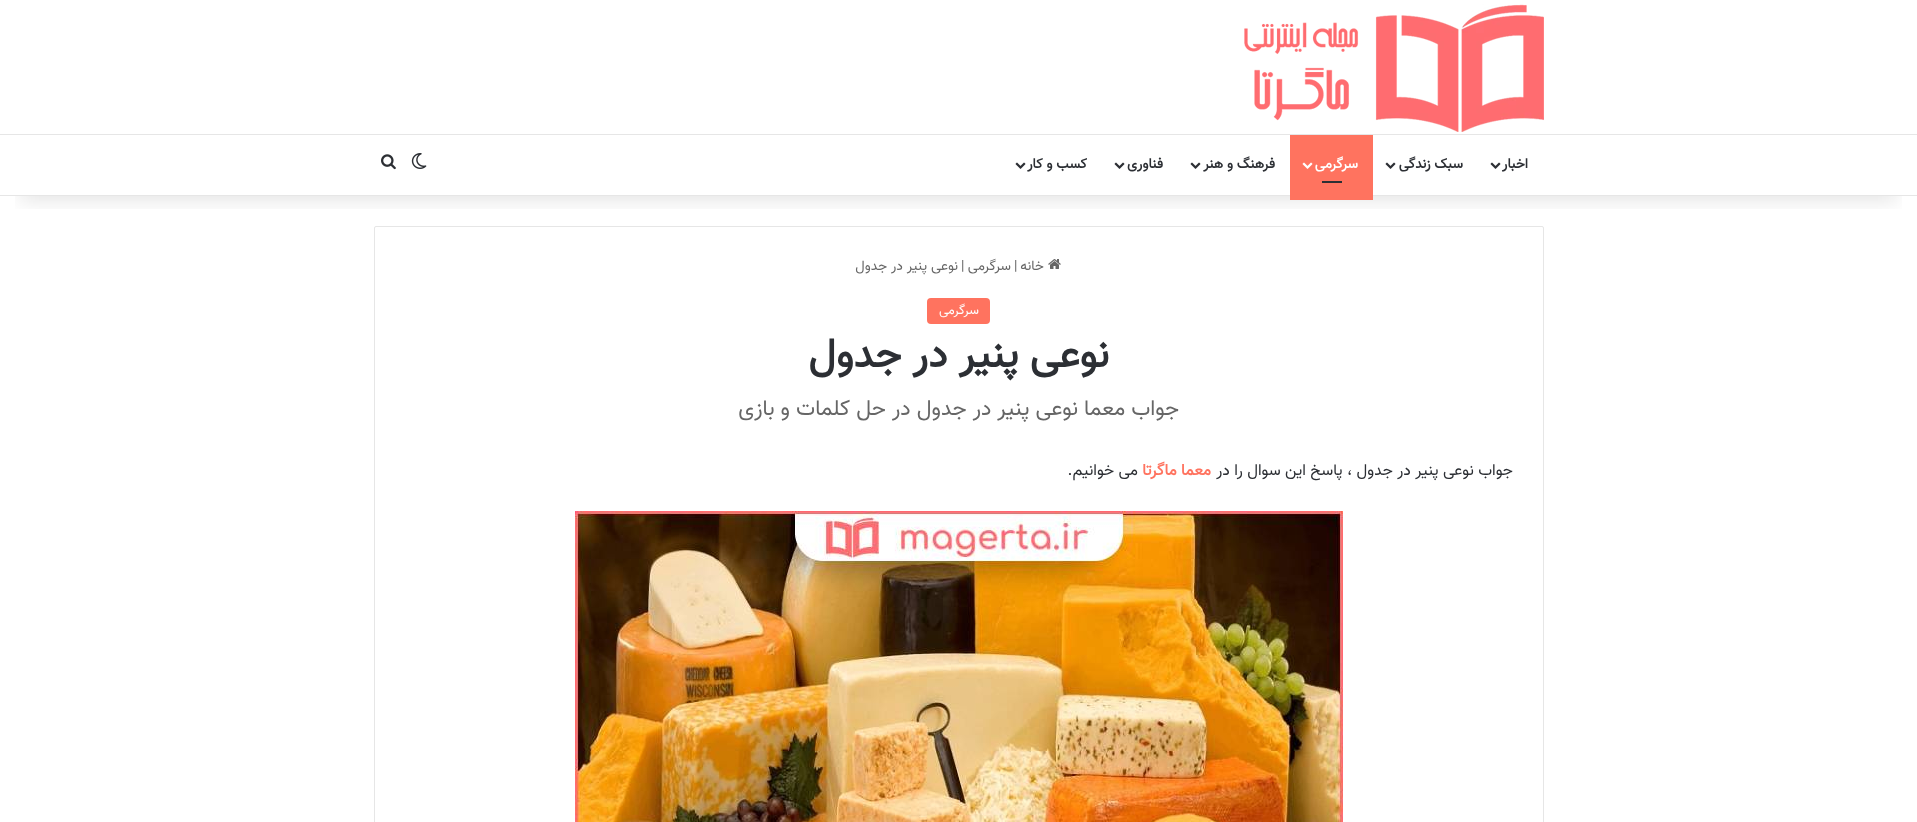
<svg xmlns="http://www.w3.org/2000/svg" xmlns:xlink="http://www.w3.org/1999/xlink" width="1917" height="822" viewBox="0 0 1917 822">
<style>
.cls-1{font:bold 14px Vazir;direction:rtl;fill:#2c2f34}
.cls-2{font:bold 14px Vazir;direction:rtl;fill:#ffffff}
.cls-3{font:14px Vazir;direction:rtl;fill:#666666}
.cls-4{font:14px Vazir;fill:#666666}
.cls-5{font:13px Vazir;direction:rtl;fill:#ffffff}
.cls-6{font:bold 41px Vazir;direction:rtl;fill:#2c2f34}
.cls-7{font:22px Vazir;direction:rtl;fill:#666666}
.cls-8{font:16px Vazir;direction:rtl;fill:#2c2f34}
.cls-9{font:bold 16px Vazir;direction:rtl;fill:#ff735f}
</style>
<defs>
<clipPath id="clip1"><rect x="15" y="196" width="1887" height="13"/></clipPath>
</defs>
<rect width="100%" height="100%" fill="#ffffff"/>
<rect fill="none" stroke="#e6e6e6" x="374.5" y="226.5" width="1169" height="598" rx="1.5"/>
<g clip-path="url(#clip1)">
<rect fill="#000000" fill-opacity="0.1" filter="blur(10px)" x="20" y="45" width="1877" height="156"/>
</g>
<image xlink:href="image0.png" x="1244" y="4" width="300" height="128"/>
<rect fill="#e6e6e6" x="0" y="134" width="1917" height="1"/>
<rect fill="#e6e6e6" x="0" y="195" width="1917" height="1"/>
<image xlink:href="image1.png" x="1490" y="162" width="11" height="7"/>
<image xlink:href="image1.png" x="1385" y="162" width="11" height="7"/>
<rect fill="#ff735f" x="1290" y="135" width="83" height="65"/>
<image xlink:href="image2.png" x="1302" y="162" width="11" height="7"/>
<rect fill="#2c2f34" x="1322" y="181" width="20" height="2"/>
<image xlink:href="image1.png" x="1190" y="162" width="11" height="7"/>
<image xlink:href="image1.png" x="1114" y="162" width="11" height="7"/>
<image xlink:href="image1.png" x="1015" y="162" width="11" height="7"/>
<image xlink:href="image3.png" x="411" y="153" width="16" height="16"/>
<image xlink:href="image4.png" x="381" y="154" width="15" height="16"/>
<image xlink:href="image5.png" x="1048" y="259" width="13" height="10"/>
<rect fill="#ff735f" x="927" y="298" width="63" height="26" rx="4"/>
<image xlink:href="image6.png" x="575" y="511" width="768" height="311"/>
<text class="cls-1" x="1528" y="168">اخبار</text>
<text class="cls-1" x="1463" y="168">سبک زندگی</text>
<text class="cls-2" x="1358" y="168">سرگرمی</text>
<text class="cls-1" x="1275" y="168">فرهنگ و هنر</text>
<text class="cls-1" x="1163" y="168">فناوری</text>
<text class="cls-1" x="1087" y="168">کسب و کار</text>
<text class="cls-3" x="1044" y="270">خانه</text>
<text class="cls-4" x="1014" y="270">|</text>
<text class="cls-3" x="1011" y="270">سرگرمی</text>
<text class="cls-4" x="961" y="270">|</text>
<text class="cls-3" x="958" y="270">نوعی پنیر در جدول</text>
<text class="cls-5" x="979" y="314">سرگرمی</text>
<text class="cls-6" x="1109" y="367">نوعی پنیر در جدول</text>
<text class="cls-7" x="1179" y="415">جواب معما نوعی پنیر در جدول در حل کلمات و بازی</text>
<text class="cls-8" x="1513" y="475">جواب نوعی پنیر در جدول ، پاسخ این سوال را در</text>
<text class="cls-9" x="1211" y="475">معما ماگرتا</text>
<text class="cls-8" x="1138" y="475">می خوانیم.</text>
</svg>
